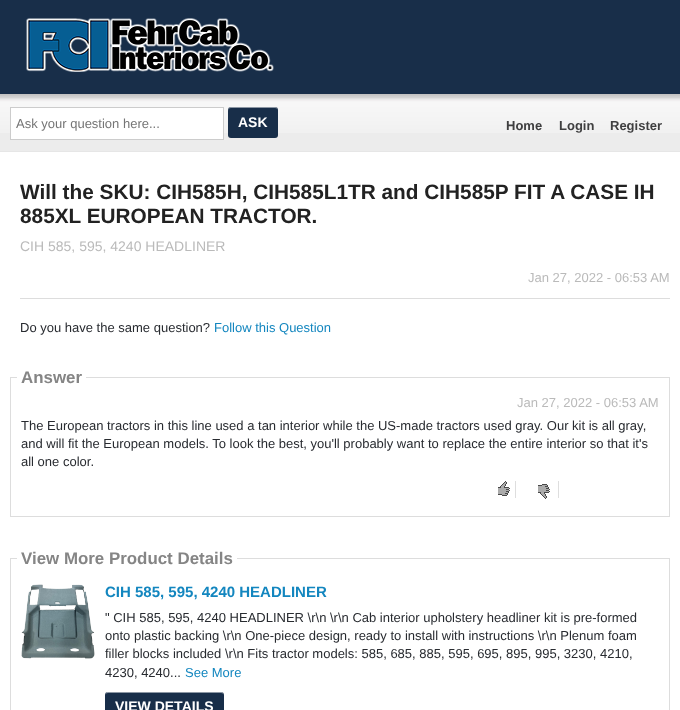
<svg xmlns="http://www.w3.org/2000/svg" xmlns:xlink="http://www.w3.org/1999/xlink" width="680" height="710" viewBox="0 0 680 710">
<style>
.cls-1{font:13px Liberation Sans;fill:#757575}
.cls-2{font:bold 14px Liberation Sans;fill:#ffffff}
.cls-3{font:bold 13px Liberation Sans;fill:#3f3f40}
.cls-4{font:bold 20.8px Liberation Sans;fill:#222222}
.cls-5{font:14px Liberation Sans;fill:#bababa}
.cls-6{font:13px Liberation Sans;fill:#bababa}
.cls-7{font:13px Liberation Sans;fill:#282b30}
.cls-8{font:13px Liberation Sans;fill:#1386bf}
.cls-9{font:bold 16.9px Liberation Sans;fill:#858585}
.cls-10{font:bold 15px Liberation Sans;fill:#1386bf}
</style>
<rect width="100%" height="100%" fill="#ffffff"/>
<rect fill="#182e49" x="0" y="0" width="680" height="94"/>
<image xlink:href="image0.png" x="26" y="18" width="248" height="54"/>
<rect fill="#ececec" x="0" y="133" width="680" height="18"/>
<image xlink:href="image1.png" x="0" y="94" width="680" height="39"/>
<rect fill="#e6e6e6" x="0" y="151" width="680" height="1"/>
<rect fill="#ffffff" stroke="#cccccc" x="10.5" y="107.5" width="213" height="32"/>
<rect fill="#182e49" x="228" y="107" width="50" height="31" rx="3"/>
<path fill="#ffffff" fill-opacity="0.5" d="M231 108H275C277 108 278 109 278 111C278 105 272 107 268 107H238C234 107 228 105 228 111C228 109 229 108 231 108Z"/>
<rect fill="#dddddd" x="20" y="298" width="650" height="1"/>
<rect fill="none" stroke="#dddddd" x="10.5" y="377.5" width="659" height="139"/>
<rect fill="#ffffff" x="17" y="377" width="69" height="1"/>
<rect fill="#dedede" x="515" y="481" width="1" height="17"/>
<image xlink:href="image2.png" x="498" y="481" width="12" height="15"/>
<rect fill="#dedede" x="558" y="481" width="1" height="17"/>
<image xlink:href="image3.png" x="538" y="484" width="12" height="15"/>
<rect fill="none" stroke="#dddddd" x="10.5" y="558.5" width="659" height="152"/>
<rect fill="#ffffff" x="17" y="558" width="220" height="1"/>
<image xlink:href="image4.png" x="21" y="584" width="74" height="75"/>
<rect fill="#182e49" x="105" y="692" width="119" height="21" rx="3"/>
<path fill="#ffffff" fill-opacity="0.5" d="M108 693H221C223 693 224 694 224 696C224 694 223 692 221 692H127C126 692 105 687 105 696C105 694 106 693 108 693Z"/>
<text class="cls-1" x="16" y="128">Ask your question here...</text>
<text class="cls-2" x="238" y="127">ASK</text>
<text class="cls-3" x="506" y="130">Home</text>
<text class="cls-3" x="559" y="130">Login</text>
<text class="cls-3" x="610" y="130">Register</text>
<text class="cls-4"><tspan x="20" y="199">Will the SKU: CIH585H, CIH585L1TR and CIH585P FIT A CASE IH</tspan><tspan x="20" y="223">885XL EUROPEAN TRACTOR.</tspan></text>
<text class="cls-5" x="20" y="251">CIH 585, 595, 4240 HEADLINER</text>
<text class="cls-6" x="528" y="282">Jan 27, 2022 - 06:53 AM</text>
<text class="cls-7" x="20" y="332">Do you have the same question?</text>
<text class="cls-8" x="214" y="332">Follow this Question</text>
<text class="cls-9" x="21" y="383">Answer</text>
<text class="cls-6" x="517" y="407">Jan 27, 2022 - 06:53 AM</text>
<text class="cls-7"><tspan x="21" y="430">The European tractors in this line used a tan interior while the US-made tractors used gray. Our kit is all gray,</tspan><tspan x="21" y="448">and will fit the European models. To look the best, you'll probably want to replace the entire interior so that it's</tspan><tspan x="21" y="466">all one color.</tspan></text>
<text class="cls-9" x="21" y="564">View More Product Details</text>
<text class="cls-10" x="105" y="597">CIH 585, 595, 4240 HEADLINER</text>
<text class="cls-7"><tspan x="105" y="622">" CIH 585, 595, 4240 HEADLINER \r\n \r\n Cab interior upholstery headliner kit is pre-formed</tspan><tspan x="105" y="640">onto plastic backing \r\n One-piece design, ready to install with instructions \r\n Plenum foam</tspan><tspan x="105" y="658">filler blocks included \r\n Fits tractor models: 585, 685, 885, 595, 695, 895, 995, 3230, 4210,</tspan><tspan x="105" y="677">4230, 4240...</tspan></text>
<text class="cls-8" x="185" y="677">See More</text>
<text class="cls-2" x="115" y="711">VIEW DETAILS</text>
</svg>
